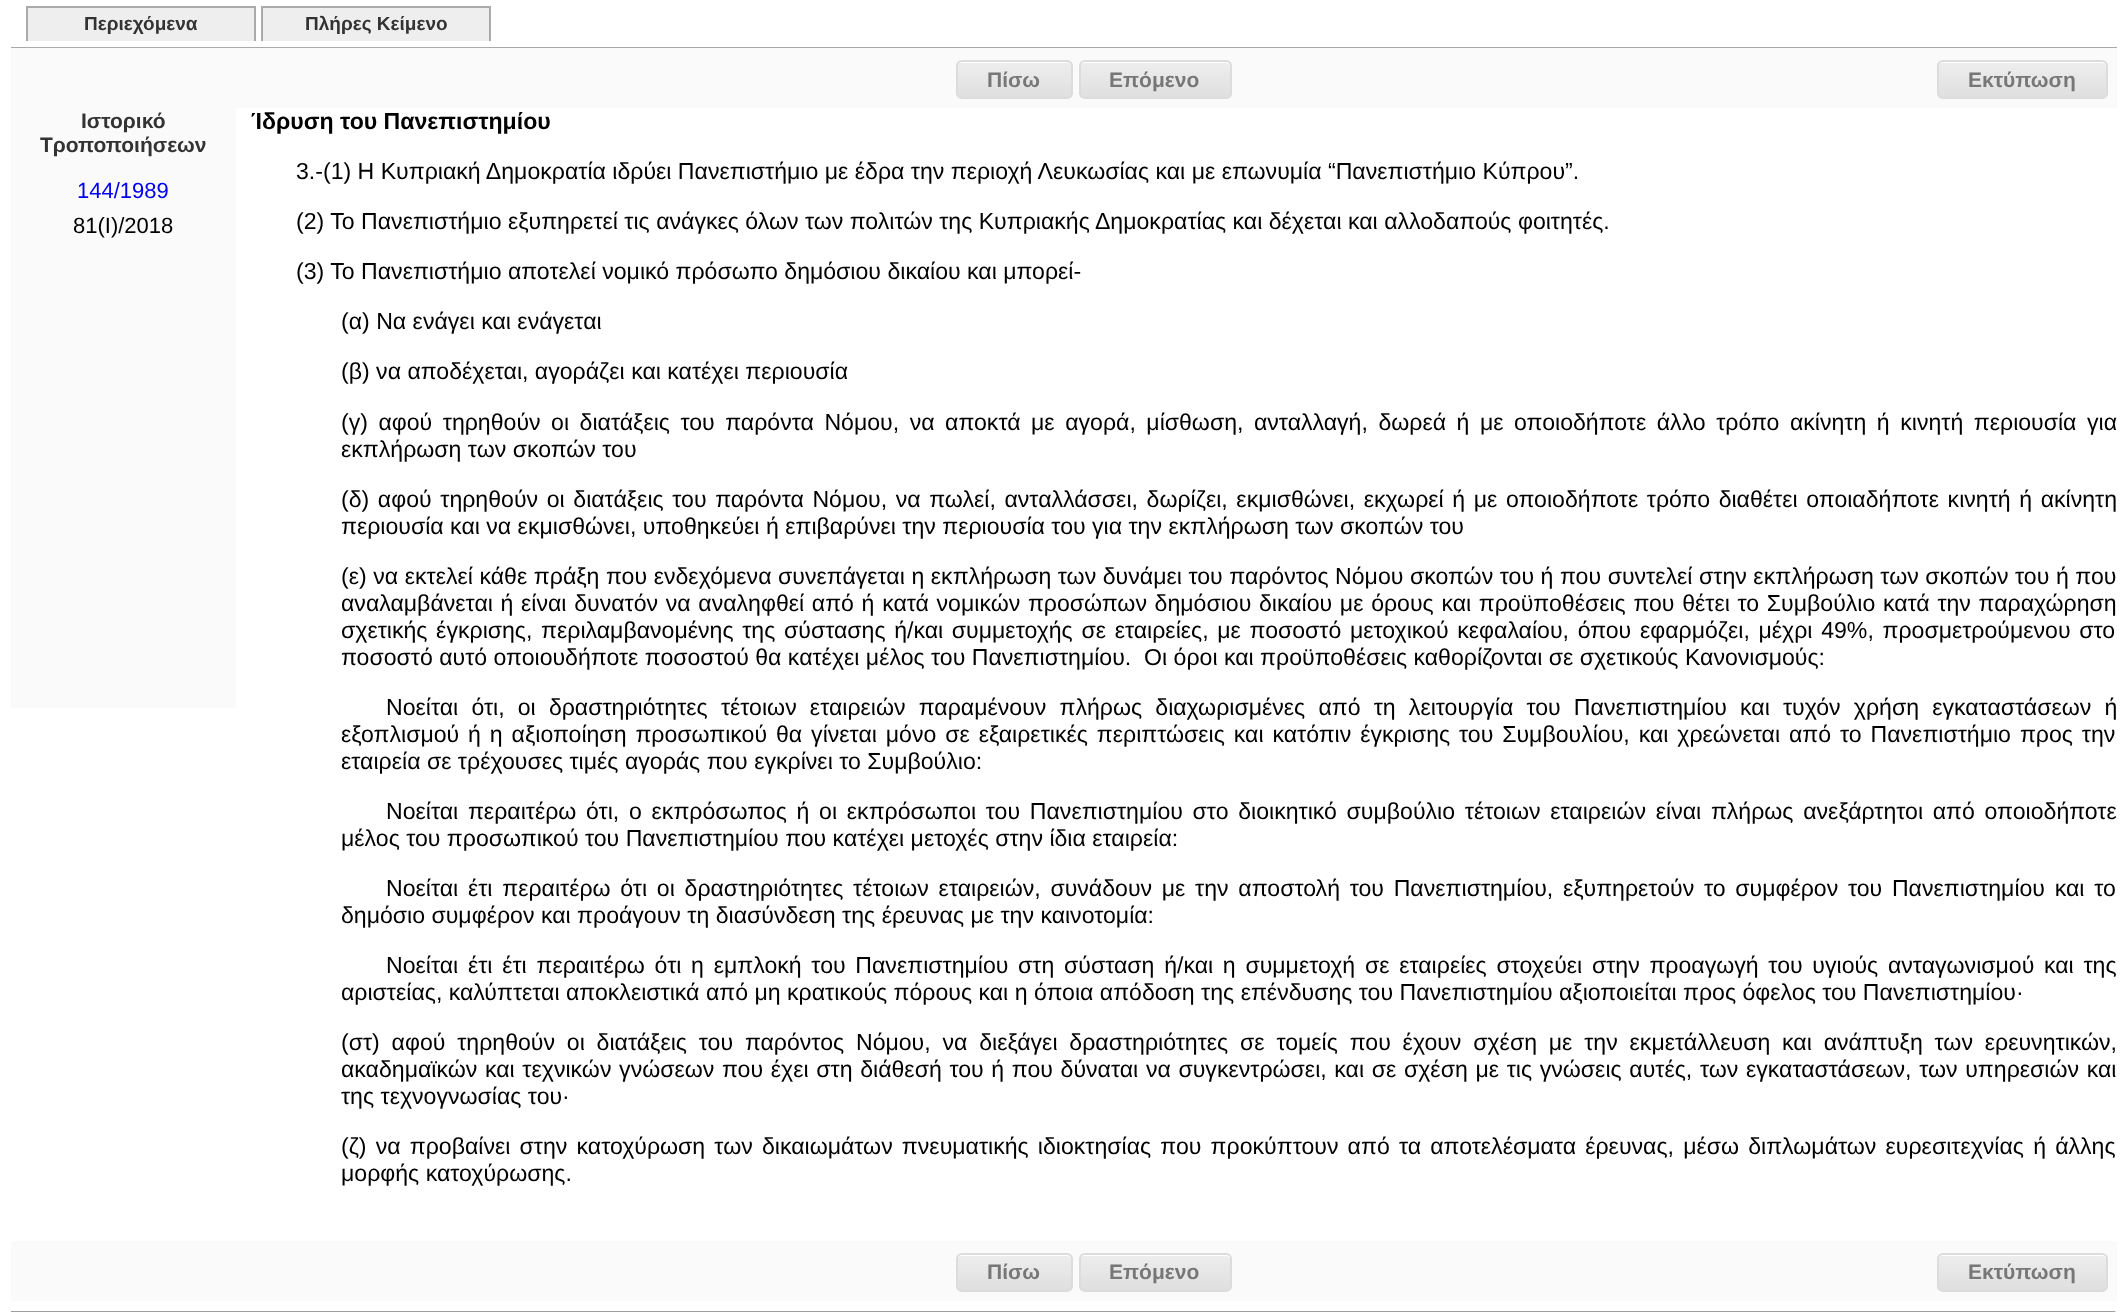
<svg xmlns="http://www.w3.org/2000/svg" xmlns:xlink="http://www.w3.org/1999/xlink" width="2127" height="1312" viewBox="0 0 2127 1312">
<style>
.cls-1{font:bold 19px Liberation Sans;fill:#333333}
.cls-2{font:bold 21px Liberation Sans;fill:#777777}
.cls-3{font:bold 21px Liberation Sans;fill:#333333}
.cls-4{font:22px Liberation Sans;fill:#0000ee}
.cls-5{font:22px Liberation Sans;fill:#000000}
.cls-6{font:bold 23.1px Liberation Sans;fill:#000000}
.cls-7{font:23.1px Liberation Sans;fill:#000000}
</style>
<defs>
<clipPath id="clip1"><rect x="956" y="60" width="117" height="39" rx="6"/></clipPath>
<linearGradient id="g1" gradientUnits="userSpaceOnUse" x1="957" y1="62" x2="957" y2="98"><stop offset="0.05" stop-color="#ededed"/><stop offset="1" stop-color="#dfdfdf"/></linearGradient>
<clipPath id="clip2"><rect x="1079" y="60" width="153" height="39" rx="6"/></clipPath>
<linearGradient id="g2" gradientUnits="userSpaceOnUse" x1="1080" y1="62" x2="1080" y2="98"><stop offset="0.05" stop-color="#ededed"/><stop offset="1" stop-color="#dfdfdf"/></linearGradient>
<clipPath id="clip3"><rect x="1937" y="60" width="171" height="39" rx="6"/></clipPath>
<linearGradient id="g3" gradientUnits="userSpaceOnUse" x1="1938" y1="62" x2="1938" y2="98"><stop offset="0.05" stop-color="#ededed"/><stop offset="1" stop-color="#dfdfdf"/></linearGradient>
<clipPath id="clip4"><rect x="956" y="1253" width="117" height="39" rx="6"/></clipPath>
<linearGradient id="g4" gradientUnits="userSpaceOnUse" x1="957" y1="1254" x2="957" y2="1290"><stop offset="0.05" stop-color="#ededed"/><stop offset="1" stop-color="#dfdfdf"/></linearGradient>
<clipPath id="clip5"><rect x="1079" y="1253" width="153" height="39" rx="6"/></clipPath>
<linearGradient id="g5" gradientUnits="userSpaceOnUse" x1="1080" y1="1254" x2="1080" y2="1290"><stop offset="0.05" stop-color="#ededed"/><stop offset="1" stop-color="#dfdfdf"/></linearGradient>
<clipPath id="clip6"><rect x="1937" y="1253" width="171" height="39" rx="6"/></clipPath>
<linearGradient id="g6" gradientUnits="userSpaceOnUse" x1="1938" y1="1254" x2="1938" y2="1290"><stop offset="0.05" stop-color="#ededed"/><stop offset="1" stop-color="#dfdfdf"/></linearGradient>
</defs>
<rect width="100%" height="100%" fill="#ffffff"/>
<rect fill="#aaaaaa" x="11" y="47" width="2106" height="1"/>
<rect fill="#eeeeee" x="28" y="8" width="226" height="33"/>
<rect fill="#aaaaaa" x="26" y="6" width="229" height="2"/>
<rect fill="#aaaaaa" x="254" y="6" width="2" height="35"/>
<rect fill="#aaaaaa" x="26" y="6" width="2" height="35"/>
<rect fill="#eeeeee" x="263" y="8" width="226" height="33"/>
<rect fill="#aaaaaa" x="261" y="6" width="230" height="2"/>
<rect fill="#aaaaaa" x="489" y="6" width="2" height="35"/>
<rect fill="#aaaaaa" x="261" y="6" width="2" height="35"/>
<rect fill="#fafafa" x="11" y="48" width="2106" height="60"/>
<g clip-path="url(#clip1)">
<rect fill="url(#g1)" x="956" y="62" width="117" height="36"/>
</g>
<path fill="#ffffff" d="M962 63H1066C1069 63 1071 65 1071 68C1071 58 1053 62 1049 62H979C975 62 957 58 957 68C957 65 959 63 962 63Z"/>
<rect fill="none" stroke="#dcdcdc" stroke-width="2" x="957" y="61" width="115" height="37" rx="5"/>
<g clip-path="url(#clip2)">
<rect fill="url(#g2)" x="1079" y="62" width="153" height="36"/>
</g>
<path fill="#ffffff" d="M1084 63H1226C1228 63 1230 65 1230 68V67C1230 64 1228 62 1225 62H1085C1082 62 1080 64 1080 67V68C1080 65 1082 63 1084 63Z"/>
<rect fill="none" stroke="#dcdcdc" stroke-width="2" x="1080" y="61" width="151" height="37" rx="5"/>
<g clip-path="url(#clip3)">
<rect fill="url(#g3)" x="1937" y="62" width="171" height="36"/>
</g>
<path fill="#ffffff" d="M1942 63H2102C2104 63 2106 65 2106 68V67C2106 64 2104 62 2101 62H1943C1940 62 1938 64 1938 67V68C1938 65 1940 63 1942 63Z"/>
<rect fill="none" stroke="#dcdcdc" stroke-width="2" x="1938" y="61" width="169" height="37" rx="5"/>
<rect fill="#fafafa" x="11" y="108" width="225" height="600"/>
<rect fill="#fafafa" x="11" y="1241" width="2106" height="60"/>
<g clip-path="url(#clip4)">
<rect fill="url(#g4)" x="956" y="1254" width="117" height="36"/>
</g>
<path fill="#ffffff" d="M962 1256H1066C1069 1256 1071 1258 1071 1260C1071 1250 1053 1254 1049 1254H979C975 1254 957 1250 957 1260C957 1258 959 1256 962 1256Z"/>
<rect fill="none" stroke="#dcdcdc" stroke-width="2" x="957" y="1254" width="115" height="37" rx="5"/>
<g clip-path="url(#clip5)">
<rect fill="url(#g5)" x="1079" y="1254" width="153" height="36"/>
</g>
<path fill="#ffffff" d="M1084 1256H1226C1228 1256 1230 1258 1230 1260V1259C1230 1256 1228 1254 1225 1254H1085C1082 1254 1080 1256 1080 1259V1260C1080 1258 1082 1256 1084 1256Z"/>
<rect fill="none" stroke="#dcdcdc" stroke-width="2" x="1080" y="1254" width="151" height="37" rx="5"/>
<g clip-path="url(#clip6)">
<rect fill="url(#g6)" x="1937" y="1254" width="171" height="36"/>
</g>
<path fill="#ffffff" d="M1942 1256H2102C2104 1256 2106 1258 2106 1260V1259C2106 1256 2104 1254 2101 1254H1943C1940 1254 1938 1256 1938 1259V1260C1938 1258 1940 1256 1942 1256Z"/>
<rect fill="none" stroke="#dcdcdc" stroke-width="2" x="1938" y="1254" width="169" height="37" rx="5"/>
<rect fill="#9f9f9f" x="11" y="1311" width="2106" height="1"/>
<rect fill="#eeeeee" x="2115" y="1311" width="2" height="1"/>
<text class="cls-1" x="84" y="30">Περιεχόμενα</text>
<text class="cls-1" x="305" y="30">Πλήρες Κείμενο</text>
<text class="cls-2" x="987" y="87">Πίσω</text>
<text class="cls-2" x="1109" y="87">Επόμενο</text>
<text class="cls-2" x="1968" y="87">Εκτύπωση</text>
<text class="cls-3" x="81" y="128">Ιστορικό</text>
<text class="cls-3" x="40" y="152">Τροποποιήσεων</text>
<text class="cls-4" x="77" y="198">144/1989</text>
<text class="cls-5" x="73" y="233">81(I)/2018</text>
<text class="cls-6" x="251" y="129">Ίδρυση του Πανεπιστημίου</text>
<text class="cls-7" x="296" y="179">3.-(1) Η Κυπριακή Δημοκρατία ιδρύει Πανεπιστήμιο με έδρα την περιοχή Λευκωσίας και με επωνυμία “Πανεπιστήμιο Κύπρου”.</text>
<text class="cls-7" x="296" y="229">(2) Το Πανεπιστήμιο εξυπηρετεί τις ανάγκες όλων των πολιτών της Κυπριακής Δημοκρατίας και δέχεται και αλλοδαπούς φοιτητές.</text>
<text class="cls-7" x="296" y="279">(3) Το Πανεπιστήμιο αποτελεί νομικό πρόσωπο δημόσιου δικαίου και μπορεί-</text>
<text class="cls-7" x="341" y="329">(α) Να ενάγει και ενάγεται</text>
<text class="cls-7" x="341" y="379">(β) να αποδέχεται, αγοράζει και κατέχει περιουσία</text>
<text class="cls-7"><tspan x="341" y="430" word-spacing="4.1">(γ) αφού τηρηθούν οι διατάξεις του παρόντα Νόμου, να αποκτά με αγορά, μίσθωση, ανταλλαγή, δωρεά ή με οποιοδήποτε άλλο τρόπο ακίνητη ή κινητή περιουσία για</tspan><tspan x="341" y="457">εκπλήρωση των σκοπών του</tspan></text>
<text class="cls-7"><tspan x="341" y="507" word-spacing="2.2">(δ) αφού τηρηθούν οι διατάξεις του παρόντα Νόμου, να πωλεί, ανταλλάσσει, δωρίζει, εκμισθώνει, εκχωρεί ή με οποιοδήποτε τρόπο διαθέτει οποιαδήποτε κινητή ή ακίνητη</tspan><tspan x="341" y="534">περιουσία και να εκμισθώνει, υποθηκεύει ή επιβαρύνει την περιουσία του για την εκπλήρωση των σκοπών του</tspan></text>
<text class="cls-7" xml:space="preserve"><tspan x="341" y="584" word-spacing="0.15">(ε) να εκτελεί κάθε πράξη που ενδεχόμενα συνεπάγεται η εκπλήρωση των δυνάμει του παρόντος Νόμου σκοπών του ή που συντελεί στην εκπλήρωση των σκοπών του ή που</tspan><tspan x="341" y="611" word-spacing="1.25">αναλαμβάνεται ή είναι δυνατόν να αναληφθεί από ή κατά νομικών προσώπων δημόσιου δικαίου με όρους και προϋποθέσεις που θέτει το Συμβούλιο κατά την παραχώρηση</tspan><tspan x="341" y="638" word-spacing="2.25">σχετικής έγκρισης, περιλαμβανομένης της σύστασης ή/και συμμετοχής σε εταιρείες, με ποσοστό μετοχικού κεφαλαίου, όπου εφαρμόζει, μέχρι 49%, προσμετρούμενου στο</tspan><tspan x="341" y="665">ποσοστό αυτό οποιουδήποτε ποσοστού θα κατέχει μέλος του Πανεπιστημίου.  Οι όροι και προϋποθέσεις καθορίζονται σε σχετικούς Κανονισμούς:</tspan></text>
<text class="cls-7" x="386" y="715" word-spacing="6.75">Νοείται ότι, οι δραστηριότητες τέτοιων εταιρειών παραμένουν πλήρως διαχωρισμένες από τη λειτουργία του Πανεπιστημίου και τυχόν χρήση εγκαταστάσεων ή</text>
<text class="cls-7"><tspan x="341" y="742" word-spacing="2.5">εξοπλισμού ή η αξιοποίηση προσωπικού θα γίνεται μόνο σε εξαιρετικές περιπτώσεις και κατόπιν έγκρισης του Συμβουλίου, και χρεώνεται από το Πανεπιστήμιο προς την</tspan><tspan x="341" y="769">εταιρεία σε τρέχουσες τιμές αγοράς που εγκρίνει το Συμβούλιο:</tspan></text>
<text class="cls-7" x="386" y="819" word-spacing="3.3">Νοείται περαιτέρω ότι, ο εκπρόσωπος ή οι εκπρόσωποι του Πανεπιστημίου στο διοικητικό συμβούλιο τέτοιων εταιρειών είναι πλήρως ανεξάρτητοι από οποιοδήποτε</text>
<text class="cls-7" x="341" y="846">μέλος του προσωπικού του Πανεπιστημίου που κατέχει μετοχές στην ίδια εταιρεία:</text>
<text class="cls-7" x="386" y="896" word-spacing="3.3">Νοείται έτι περαιτέρω ότι οι δραστηριότητες τέτοιων εταιρειών, συνάδουν με την αποστολή του Πανεπιστημίου, εξυπηρετούν το συμφέρον του Πανεπιστημίου και το</text>
<text class="cls-7" x="341" y="923">δημόσιο συμφέρον και προάγουν τη διασύνδεση της έρευνας με την καινοτομία:</text>
<text class="cls-7" x="386" y="973" word-spacing="3.3">Νοείται έτι έτι περαιτέρω ότι η εμπλοκή του Πανεπιστημίου στη σύσταση ή/και η συμμετοχή σε εταιρείες στοχεύει στην προαγωγή του υγιούς ανταγωνισμού και της</text>
<text class="cls-7" x="341" y="1000">αριστείας, καλύπτεται αποκλειστικά από μη κρατικούς πόρους και η όποια απόδοση της επένδυσης του Πανεπιστημίου αξιοποιείται προς όφελος του Πανεπιστημίου·</text>
<text class="cls-7"><tspan x="341" y="1050" word-spacing="5.4">(στ) αφού τηρηθούν οι διατάξεις του παρόντος Νόμου, να διεξάγει δραστηριότητες σε τομείς που έχουν σχέση με την εκμετάλλευση και ανάπτυξη των ερευνητικών,</tspan><tspan x="341" y="1077" word-spacing="1.25">ακαδημαϊκών και τεχνικών γνώσεων που έχει στη διάθεσή του ή που δύναται να συγκεντρώσει, και σε σχέση με τις γνώσεις αυτές, των εγκαταστάσεων, των υπηρεσιών και</tspan><tspan x="341" y="1104">της τεχνογνωσίας του·</tspan></text>
<text class="cls-7"><tspan x="341" y="1154" word-spacing="2.75">(ζ) να προβαίνει στην κατοχύρωση των δικαιωμάτων πνευματικής ιδιοκτησίας που προκύπτουν από τα αποτελέσματα έρευνας, μέσω διπλωμάτων ευρεσιτεχνίας ή άλλης</tspan><tspan x="341" y="1181">μορφής κατοχύρωσης.</tspan></text>
<text class="cls-2" x="987" y="1279">Πίσω</text>
<text class="cls-2" x="1109" y="1279">Επόμενο</text>
<text class="cls-2" x="1968" y="1279">Εκτύπωση</text>
</svg>
